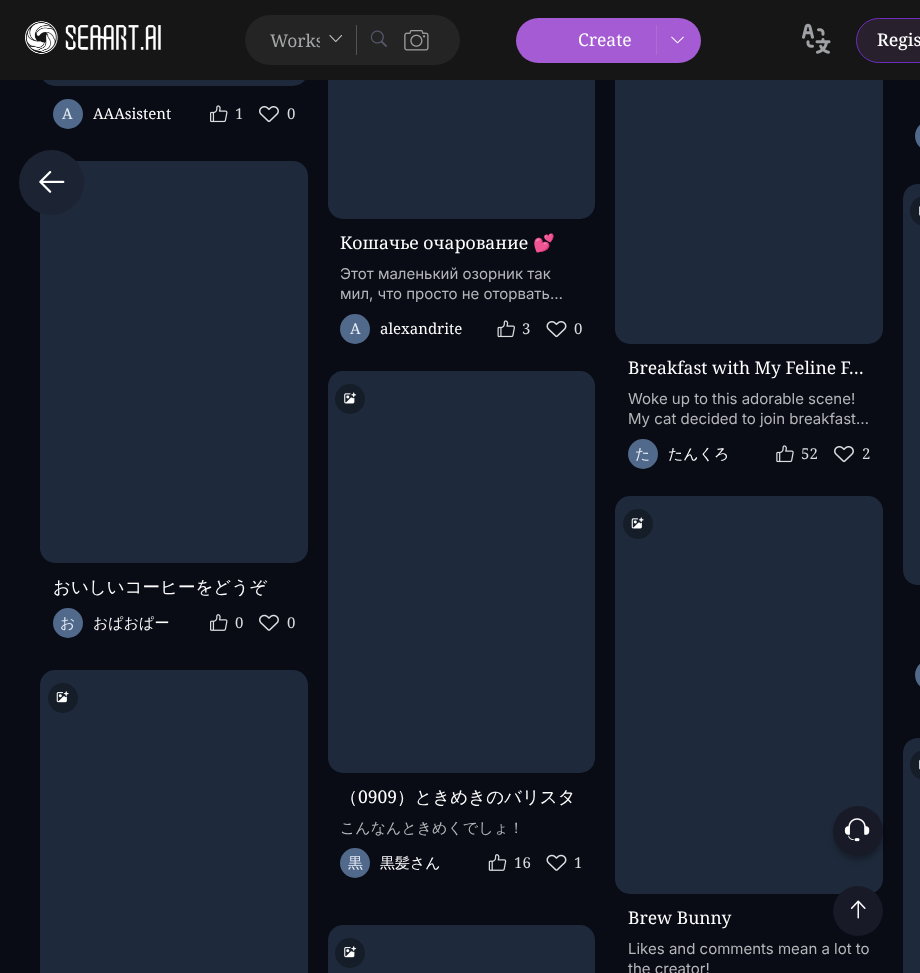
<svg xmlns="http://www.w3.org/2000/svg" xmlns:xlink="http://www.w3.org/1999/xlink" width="920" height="973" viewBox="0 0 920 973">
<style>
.cls-1{font:17.5px Noto Serif;fill:#a7a8aa}
.cls-2{font:17.5px Noto Serif;fill:#ffffff}
.cls-3{font:500 17.5px Noto Serif;fill:#ffffff}
.cls-4{font:15px Noto Serif;fill:#e9eef8}
.cls-5{font:15px Noto Serif;fill:#ffffff}
.cls-6{font:15px Noto Serif;fill:#dcdde0}
.cls-7{font:17.5px Noto Color Emoji;fill:#ffffff}
.cls-8{font:15px Inter;fill:#b5b6b9}
.cls-9{font:500 15px WenQuanYi Zen Hei;fill:#e9eef8}
.cls-10{font:500 15px WenQuanYi Zen Hei;fill:#ffffff}
.cls-11{font:500 17.5px WenQuanYi Zen Hei;fill:#ffffff}
.cls-12{font:500 15px WenQuanYi Zen Hei;fill:#b5b6b9}
</style>
<defs>
<clipPath id="clip1"><rect x="270" y="29" width="50" height="24"/></clipPath>
</defs>
<rect width="100%" height="100%" fill="#090b15"/>
<rect fill="#1e2a3b" x="40" y="-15" width="268" height="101" rx="15"/>
<rect fill="#1e2a3b" x="328" y="-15" width="267" height="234" rx="15"/>
<rect fill="#1e2a3b" x="615" y="-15" width="268" height="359" rx="15"/>
<rect fill="#161616" x="0" y="0" width="920" height="80"/>
<image xlink:href="image0.png" x="25" y="21" width="136" height="33"/>
<rect fill="#242424" x="245" y="15" width="215" height="50" rx="25"/>
<image xlink:href="image1.png" x="329" y="35" width="13" height="7"/>
<rect fill="#525252" x="356" y="25" width="1" height="30"/>
<image xlink:href="image2.png" x="370" y="30" width="17" height="17"/>
<image xlink:href="image3.png" x="404" y="30" width="25" height="21"/>
<rect fill="#a55bd3" x="516" y="18" width="185" height="45" rx="22.5"/>
<rect fill="#ae6bd7" x="656" y="25" width="1" height="30"/>
<image xlink:href="image4.png" x="671" y="36" width="13" height="8"/>
<image xlink:href="image5.png" x="802" y="23" width="29" height="31"/>
<rect fill="#28202d" stroke="#6c2ebc" x="856.5" y="18.5" width="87" height="44" rx="22"/>
<rect fill="#1e2a3b" x="40" y="161" width="268" height="402" rx="15"/>
<circle fill="#1c2433" cx="51.5" cy="182.5" r="32.5"/>
<image xlink:href="image6.png" x="39" y="171" width="26" height="22"/>
<circle fill="#516a8b" cx="68" cy="114" r="15"/>
<image xlink:href="image7.png" x="210" y="105" width="18" height="18"/>
<image xlink:href="image8.png" x="259" y="106" width="20" height="17"/>
<path fill="#516a8b" d="M930 121H920V151H930C921.5 151 915 144.5 915 136C915 127.5 921.5 121 930 121Z"/>
<circle fill="#516a8b" cx="355" cy="329" r="15"/>
<image xlink:href="image9.png" x="497" y="320" width="18" height="18"/>
<image xlink:href="image10.png" x="546" y="321" width="21" height="17"/>
<path fill="#1e2a3b" d="M918 184H920V585H918C909.5 585 903 578.5 903 570V199C903 190.5 909.5 184 918 184Z"/>
<path fill="#151d29" d="M925 196H920V226H925C916.5 226 910 219.5 910 211C910 202.5 916.5 196 925 196Z"/>
<image xlink:href="image11.png" x="919" y="206" width="1" height="10"/>
<path fill="#516a8b" d="M930 660H920V690H930C921.5 690 915 683.5 915 675C915 666.5 921.5 660 930 660Z"/>
<circle fill="#516a8b" cx="643" cy="454" r="15"/>
<image xlink:href="image12.png" x="776" y="445" width="18" height="18"/>
<image xlink:href="image8.png" x="834" y="446" width="20" height="17"/>
<circle fill="#516a8b" cx="68" cy="623" r="15"/>
<image xlink:href="image13.png" x="210" y="614" width="18" height="17"/>
<image xlink:href="image14.png" x="259" y="614" width="20" height="17"/>
<rect fill="#1e2a3b" x="40" y="670" width="268" height="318" rx="15"/>
<circle fill="#151d29" cx="63" cy="698" r="15"/>
<image xlink:href="image15.png" x="56" y="691" width="13" height="12"/>
<rect fill="#1e2a3b" x="328" y="371" width="267" height="402" rx="15"/>
<circle fill="#151d29" cx="350" cy="399" r="15"/>
<image xlink:href="image16.png" x="344" y="392" width="13" height="12"/>
<circle fill="#516a8b" cx="355" cy="863" r="15"/>
<image xlink:href="image17.png" x="488" y="854" width="19" height="17"/>
<image xlink:href="image18.png" x="546" y="854" width="21" height="17"/>
<path fill="#1e2a3b" d="M918 738H920V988H918C909.5 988 903 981.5 903 973V753C903 744.5 909.5 738 918 738Z"/>
<path fill="#151d29" d="M925 750H920V780H925C916.5 780 910 773.5 910 765C910 756.5 916.5 750 925 750Z"/>
<image xlink:href="image19.png" x="919" y="759" width="1" height="11"/>
<rect fill="#1e2a3b" x="328" y="925" width="267" height="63" rx="15"/>
<circle fill="#151d29" cx="350" cy="953" r="15"/>
<image xlink:href="image20.png" x="344" y="946" width="13" height="12"/>
<rect fill="#1e2a3b" x="615" y="496" width="268" height="398" rx="15"/>
<circle fill="#151d29" cx="638" cy="524" r="15"/>
<image xlink:href="image21.png" x="631" y="517" width="13" height="12"/>
<circle fill="#191a27" cx="858" cy="911" r="25"/>
<image xlink:href="image22.png" x="850" y="900" width="16" height="19"/>
<rect fill="#000000" fill-opacity="0.25" filter="blur(2.5px)" x="833" y="811" width="50" height="50" rx="25"/>
<circle fill="#191a27" cx="858" cy="831" r="25"/>
<image xlink:href="image23.png" x="844" y="818" width="26" height="24"/>
<g clip-path="url(#clip1)">
<text class="cls-1" x="270" y="47">Works</text>
</g>
<text class="cls-2" x="578" y="46">Create</text>
<text class="cls-3" x="877" y="46">Regis</text>
<text class="cls-4" x="62" y="119">A</text>
<text class="cls-5" x="93" y="119">AAAsistent</text>
<text class="cls-6" x="235" y="119">1</text>
<text class="cls-6" x="287" y="119">0</text>
<text class="cls-2" x="340" y="249">Кошачье очарование</text>
<text class="cls-7" x="533" y="249">💕</text>
<text class="cls-8"><tspan x="340" y="279">Этот маленький озорник так</tspan><tspan x="340" y="299">мил, что просто не оторвать…</tspan></text>
<text class="cls-4" x="350" y="334">A</text>
<text class="cls-5" x="380" y="334">alexandrite</text>
<text class="cls-6" x="522" y="334">3</text>
<text class="cls-6" x="574" y="334">0</text>
<text class="cls-2" x="628" y="374">Breakfast with My Feline F…</text>
<text class="cls-8"><tspan x="628" y="404">Woke up to this adorable scene!</tspan><tspan x="628" y="424">My cat decided to join breakfast…</tspan></text>
<text class="cls-9" x="635" y="459">た</text>
<text class="cls-10" x="668" y="459">たんくろ</text>
<text class="cls-6" x="801" y="459">52</text>
<text class="cls-6" x="862" y="459">2</text>
<text class="cls-11" x="53" y="593">おいしいコーヒーをどうぞ</text>
<text class="cls-9" x="60" y="628">お</text>
<text class="cls-10" x="93" y="628">おぱおぱー</text>
<text class="cls-6" x="235" y="628">0</text>
<text class="cls-6" x="287" y="628">0</text>
<text class="cls-11" x="340" y="803">（</text>
<text class="cls-2" x="358" y="803">0909</text>
<text class="cls-11" x="397" y="803">）ときめきのバリスタ</text>
<text class="cls-12" x="340" y="833">こんなんときめくでしょ！</text>
<text class="cls-9" x="348" y="868">黒</text>
<text class="cls-10" x="380" y="868">黒髪さん</text>
<text class="cls-6" x="514" y="868">16</text>
<text class="cls-6" x="574" y="868">1</text>
<text class="cls-2" x="628" y="924">Brew Bunny</text>
<text class="cls-8"><tspan x="628" y="954">Likes and comments mean a lot to</tspan><tspan x="628" y="974">the creator!</tspan></text>
</svg>
